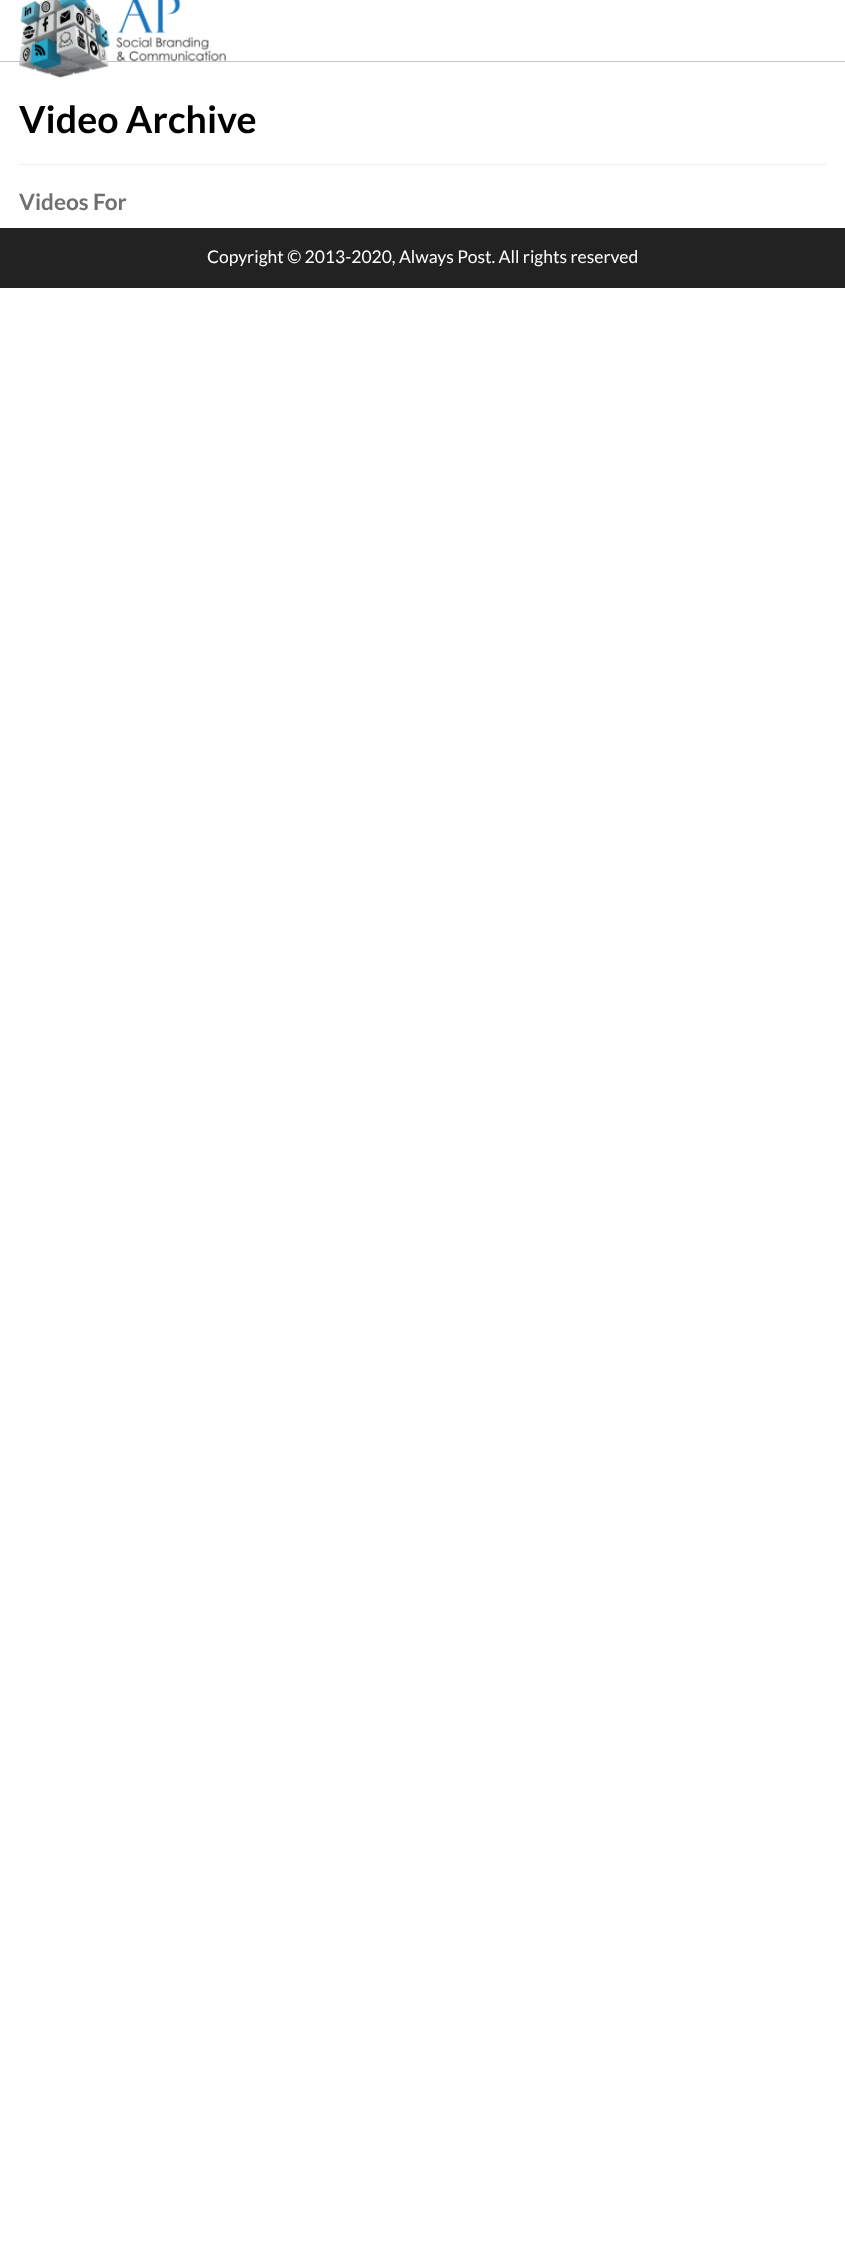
<svg xmlns="http://www.w3.org/2000/svg" xmlns:xlink="http://www.w3.org/1999/xlink" width="845" height="2266" viewBox="0 0 845 2266">
<style>
.cls-1{font:bold 37.5px Lato;fill:#000000}
.cls-2{font:bold 22.5px Lato;fill:#707070}
.cls-3{font:17.5px Lato;fill:#ffffff}
</style>
<rect width="100%" height="100%" fill="#ffffff"/>
<rect fill="#bdc3c7" x="0" y="61" width="845" height="1"/>
<image xlink:href="image0.png" x="19" y="0" width="207" height="78"/>
<rect fill="#eeeeee" x="19" y="164" width="807" height="1"/>
<rect fill="#222222" x="0" y="228" width="845" height="60"/>
<text class="cls-1" x="19" y="133">Video Archive</text>
<text class="cls-2" x="19" y="210">Videos For</text>
<text class="cls-3" x="207" y="263">Copyright © 2013-2020, Always Post. All rights reserved</text>
</svg>
